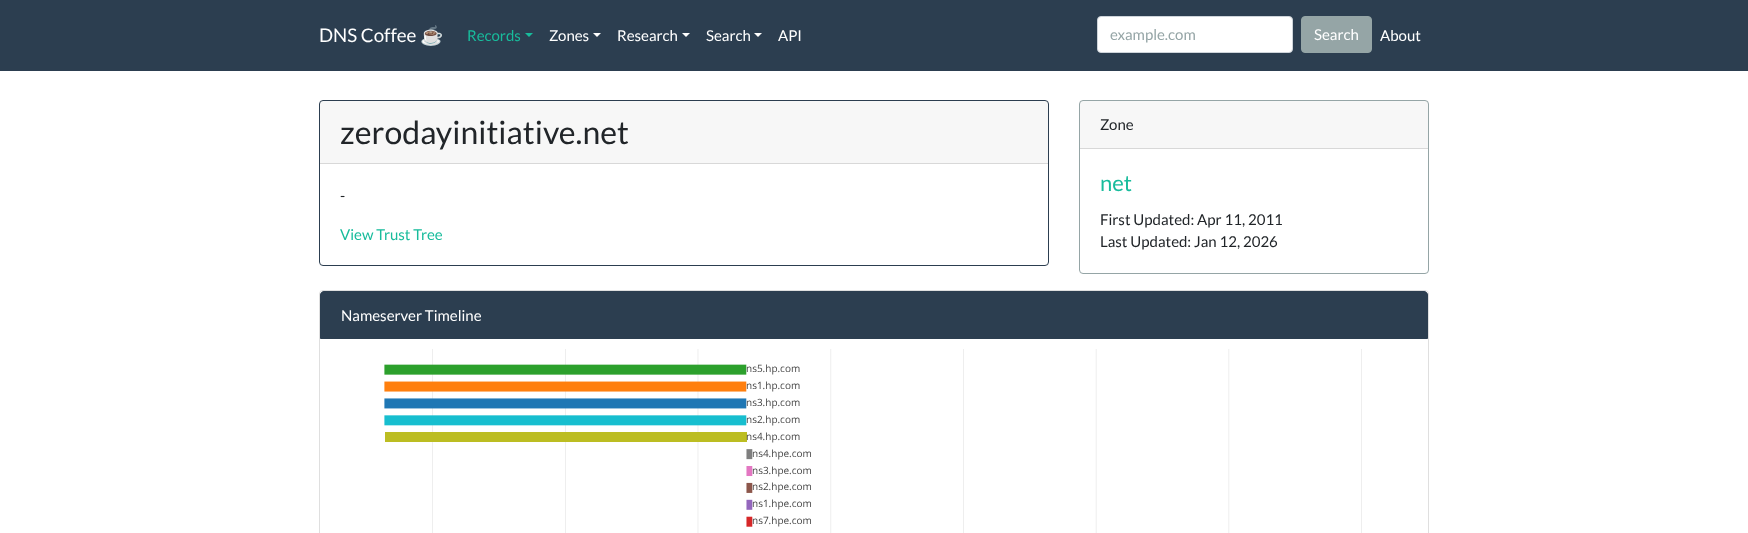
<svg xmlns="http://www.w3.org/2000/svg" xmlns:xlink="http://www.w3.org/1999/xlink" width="1748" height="533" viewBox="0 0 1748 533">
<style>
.cls-1{font:18.75px Lato;fill:#ffffff}
.cls-2{font:18.75px Noto Color Emoji;fill:#ffffff}
.cls-3{font:15px Lato;fill:#18bc9c}
.cls-4{font:15px Lato;fill:#ffffff}
.cls-5{font:15px Lato;fill:#95a5a6}
.cls-6{font:32px Lato;fill:#212529}
.cls-7{font:15px Lato;fill:#212529}
.cls-8{font:22px Lato;fill:#18bc9c}
.cls-9{font:10px Open Sans;fill:#444444}
</style>
<rect width="100%" height="100%" fill="#ffffff"/>
<rect fill="#2c3e50" x="0" y="0" width="1748" height="71"/>
<path fill="#18bc9c" d="M525 33H533L529 37Z"/>
<path fill="#ffffff" d="M593 33H601L597 37Z"/>
<path fill="#ffffff" d="M682 33H690L686 37Z"/>
<path fill="#ffffff" d="M754 33H762L758 37Z"/>
<rect fill="#ffffff" stroke="#ced4da" x="1097.5" y="16.5" width="195" height="36" rx="3.5"/>
<rect fill="#95a5a6" stroke="#95a5a6" x="1301.5" y="16.5" width="70" height="36" rx="3.5"/>
<rect fill="none" stroke="#2c3e50" x="319.5" y="100.5" width="729" height="165" rx="3.5"/>
<rect fill="#000000" fill-opacity="0.03" x="320" y="101" width="728" height="62"/>
<rect fill="#d8d8d8" x="320" y="163" width="728" height="1"/>
<rect fill="none" stroke="#95a5a6" x="1079.5" y="100.5" width="349" height="173" rx="3.5"/>
<rect fill="#000000" fill-opacity="0.03" x="1080" y="101" width="348" height="47"/>
<rect fill="#d8d8d8" x="1080" y="148" width="348" height="1"/>
<rect fill="none" stroke="#dfdfdf" x="319.5" y="290.5" width="1109" height="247" rx="3.5"/>
<path fill="#2c3e50" stroke="#2c3e50" d="M324 291.5H1424C1426 291.5 1427.5 293 1427.5 295V338.5H320.5V295C320.5 293 322 291.5 324 291.5Z"/>
<image xlink:href="image0.png" x="384" y="349" width="978" height="184"/>
<text class="cls-1" x="319" y="42">DNS Coffee</text>
<text class="cls-2" x="420" y="42">☕</text>
<text class="cls-3" x="467" y="41">Records</text>
<text class="cls-4" x="549" y="41">Zones</text>
<text class="cls-4" x="617" y="41">Research</text>
<text class="cls-4" x="706" y="41">Search</text>
<text class="cls-4" x="778" y="41">API</text>
<text class="cls-5" x="1110" y="40">example.com</text>
<text class="cls-4" x="1314" y="40">Search</text>
<text class="cls-4" x="1380" y="41">About</text>
<text class="cls-6" x="340" y="144">zerodayinitiative.net</text>
<text class="cls-7" x="340" y="201">-</text>
<text class="cls-3" x="340" y="240">View Trust Tree</text>
<text class="cls-7" x="1100" y="130">Zone</text>
<text class="cls-8" x="1100" y="191">net</text>
<text class="cls-7"><tspan x="1100" y="225">First Updated: Apr 11, 2011</tspan><tspan x="1100" y="247">Last Updated: Jan 12, 2026</tspan></text>
<text class="cls-4" x="341" y="321">Nameserver Timeline</text>
<text class="cls-9"><tspan x="746" y="372">ns5.hp.com</tspan><tspan x="746" y="389">ns1.hp.com</tspan><tspan x="746" y="406">ns3.hp.com</tspan><tspan x="746" y="423">ns2.hp.com</tspan><tspan x="746" y="440">ns4.hp.com</tspan></text>
<text class="cls-9"><tspan x="752" y="457">ns4.hpe.com</tspan><tspan x="752" y="474">ns3.hpe.com</tspan><tspan x="752" y="490">ns2.hpe.com</tspan><tspan x="752" y="507">ns1.hpe.com</tspan><tspan x="752" y="524">ns7.hpe.com</tspan></text>
</svg>
